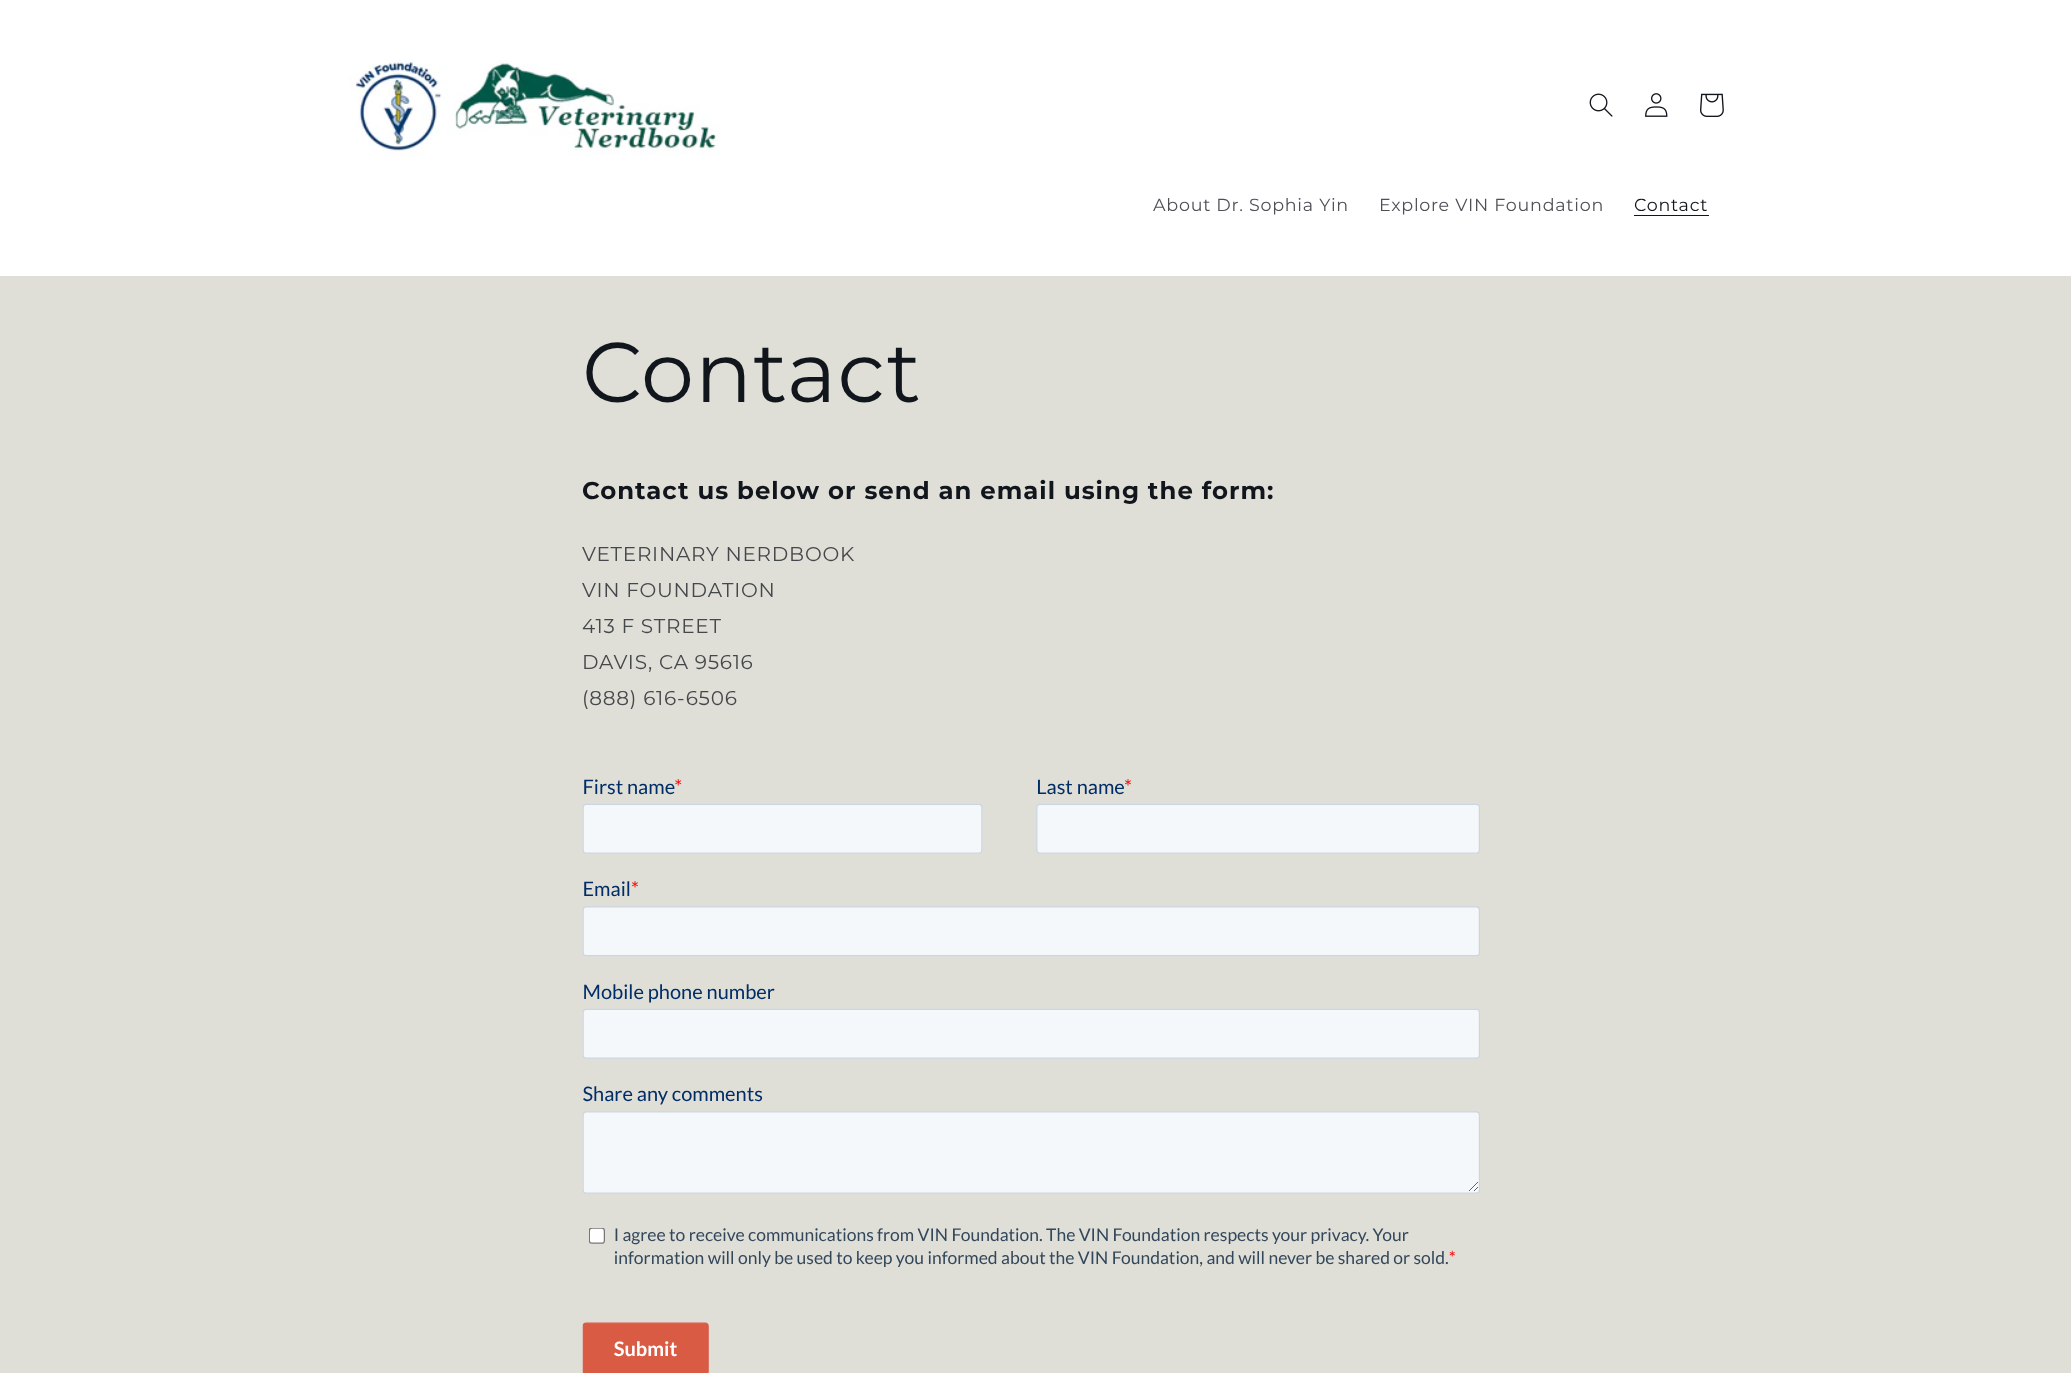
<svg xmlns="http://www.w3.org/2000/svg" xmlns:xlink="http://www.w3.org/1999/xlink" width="2071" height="1373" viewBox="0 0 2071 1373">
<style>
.cls-1{font:17.5px Montserrat;letter-spacing:0.75px;fill:#4d5055}
.cls-2{font:17.5px Montserrat;letter-spacing:0.75px;fill:#11151c}
.cls-3{font:84.5px Montserrat;letter-spacing:1px;fill:#11151c}
.cls-4{font:bold 24.4px Montserrat;letter-spacing:1px;fill:#11151c}
.cls-5{font:20px Montserrat;letter-spacing:0.75px;fill:#45484b}
</style>
<rect width="100%" height="100%" fill="#dfdfd8"/>
<rect fill="#ffffff" x="0" y="0" width="2071" height="276"/>
<image xlink:href="image0.png" x="349" y="60" width="370" height="95"/>
<image xlink:href="image1.png" x="1589" y="93" width="24" height="24"/>
<image xlink:href="image2.png" x="1645" y="93" width="23" height="24"/>
<image xlink:href="image3.png" x="1700" y="93" width="24" height="24"/>
<rect fill="#11151c" x="1634" y="215" width="75" height="1"/>
<image xlink:href="image4.png" x="582" y="779" width="898" height="594"/>
<text class="cls-1" x="1153" y="211">About Dr. Sophia Yin</text>
<text class="cls-1" x="1379" y="211">Explore VIN Foundation</text>
<text class="cls-2" x="1634" y="211">Contact</text>
<text class="cls-3" x="582" y="402">Contact</text>
<text class="cls-4" x="582" y="499">Contact us below or send an email using the form:</text>
<text class="cls-5"><tspan x="582" y="561">VETERINARY NERDBOOK</tspan><tspan x="582" y="597">VIN FOUNDATION</tspan><tspan x="582" y="633">413 F STREET</tspan><tspan x="582" y="669">DAVIS, CA 95616</tspan><tspan x="582" y="705">(888) 616-6506</tspan></text>
</svg>
